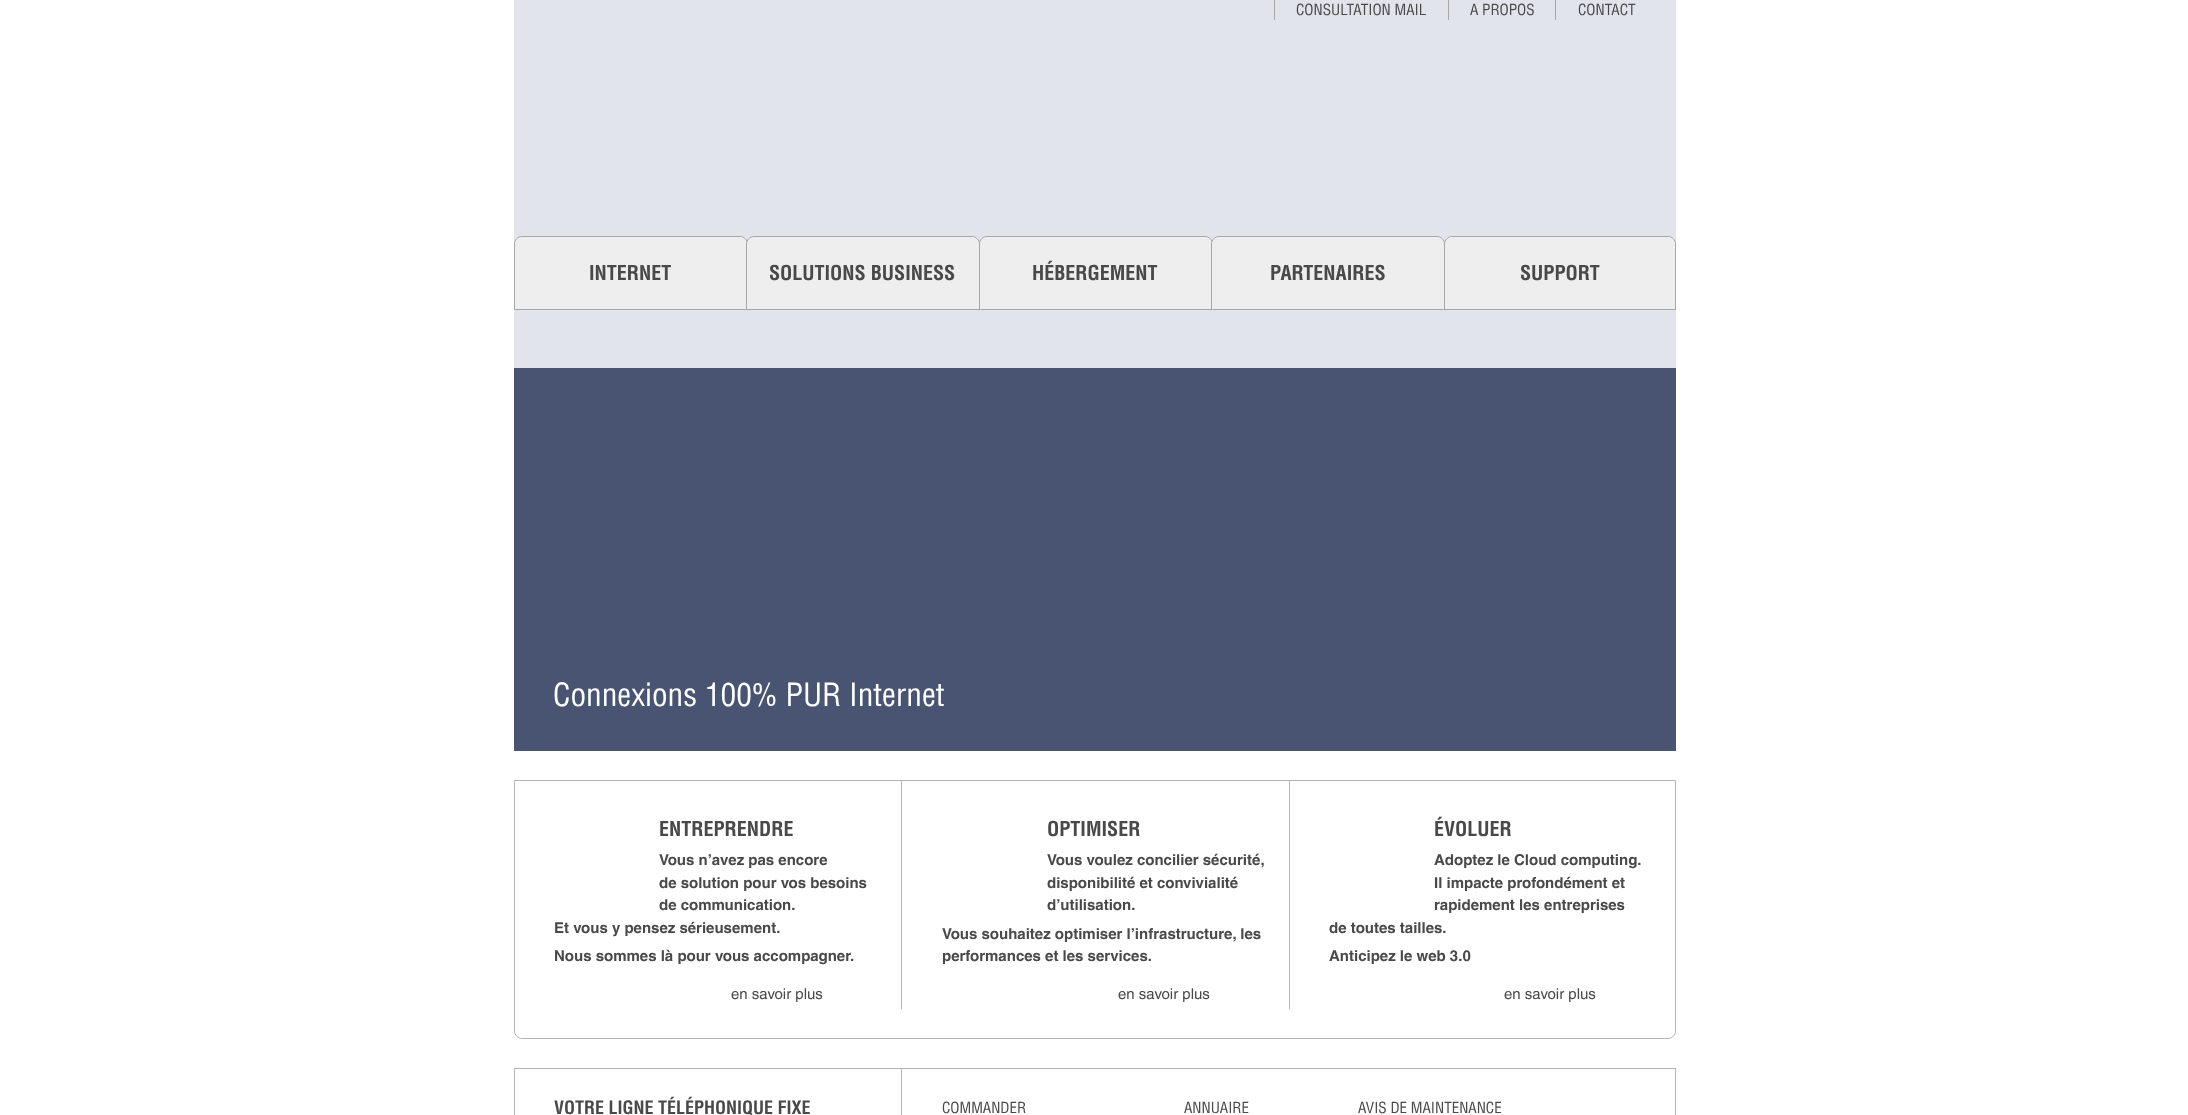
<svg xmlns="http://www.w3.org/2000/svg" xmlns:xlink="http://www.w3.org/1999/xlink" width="2188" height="1115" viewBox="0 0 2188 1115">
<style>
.cls-1{font:15px 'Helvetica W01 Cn';fill:#494949}
.cls-2{font:20px 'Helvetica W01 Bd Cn';fill:#494949}
.cls-3{font:31.25px 'Helvetica W01 Cn';fill:#ffffff}
.cls-4{font:bold 15px Helvetica;fill:#494949}
.cls-5{font:15px Helvetica;fill:#494949}
.cls-6{font:18px 'Helvetica W01 Bd Cn';fill:#494949}
</style>
<rect width="100%" height="100%" fill="#ffffff"/>
<rect fill="#e1e5eb" x="514" y="0" width="1162" height="368"/>
<rect fill="#a7a7a7" x="1448" y="0" width="1" height="20"/>
<rect fill="#a7a7a7" x="1274" y="0" width="1" height="20"/>
<rect fill="#a7a7a7" x="1555" y="0" width="1" height="20"/>
<path fill="#eeeeee" stroke="#a7a7a7" d="M522 236.5H740C744 236.5 747.5 240 747.5 244V309.5H514.5V244C514.5 240 518 236.5 522 236.5Z"/>
<path fill="#eeeeee" stroke="#a7a7a7" d="M754 236.5H972C976 236.5 979.5 240 979.5 244V309.5H746.5V244C746.5 240 750 236.5 754 236.5Z"/>
<path fill="#eeeeee" stroke="#a7a7a7" d="M987 236.5H1205C1209 236.5 1212.5 240 1212.5 244V309.5H979.5V244C979.5 240 983 236.5 987 236.5Z"/>
<path fill="#eeeeee" stroke="#a7a7a7" d="M1219 236.5H1437C1441 236.5 1444.5 240 1444.5 244V309.5H1211.5V244C1211.5 240 1215 236.5 1219 236.5Z"/>
<path fill="#eeeeee" stroke="#a7a7a7" d="M1452 236.5H1668C1672 236.5 1675.5 240 1675.5 244V309.5H1444.5V244C1444.5 240 1448 236.5 1452 236.5Z"/>
<rect fill="#495473" x="514" y="368" width="1162" height="383"/>
<path fill="none" stroke="#b4b4b4" d="M514.5 780.5H1675.5V1031C1675.5 1035 1672 1038.5 1668 1038.5H522C518 1038.5 514.5 1035 514.5 1031Z"/>
<rect fill="#b4b4b4" x="901" y="781" width="1" height="228"/>
<rect fill="#b4b4b4" x="1289" y="781" width="1" height="228"/>
<rect fill="none" stroke="#b4b4b4" x="514.5" y="1068.5" width="1161" height="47"/>
<rect fill="#b4b4b4" x="901" y="1069" width="1" height="46"/>
<text class="cls-1" x="1296" y="15">CONSULTATION MAIL</text>
<text class="cls-1" x="1470" y="15">A PROPOS</text>
<text class="cls-1" x="1578" y="15">CONTACT</text>
<text class="cls-2" x="589" y="280">INTERNET</text>
<text class="cls-2" x="769" y="280">SOLUTIONS BUSINESS</text>
<text class="cls-2" x="1032" y="280">HÉBERGEMENT</text>
<text class="cls-2" x="1270" y="280">PARTENAIRES</text>
<text class="cls-2" x="1520" y="280">SUPPORT</text>
<text class="cls-3" x="553" y="706">Connexions 100% PUR Internet</text>
<text class="cls-2" x="659" y="836">ENTREPRENDRE</text>
<text class="cls-4"><tspan x="659" y="865">Vous n’avez pas encore</tspan><tspan x="659" y="888">de solution pour vos besoins</tspan><tspan x="659" y="910">de communication.</tspan></text>
<text class="cls-4"><tspan x="554" y="933">Et vous y pensez sérieusement.</tspan><tspan x="554" y="961">Nous sommes là pour vous accompagner.</tspan></text>
<text class="cls-5" x="731" y="999">en savoir plus</text>
<text class="cls-2" x="1047" y="836">OPTIMISER</text>
<text class="cls-4"><tspan x="1047" y="865">Vous voulez concilier sécurité,</tspan><tspan x="1047" y="888">disponibilité et convivialité</tspan><tspan x="1047" y="910">d’utilisation.</tspan></text>
<text class="cls-4"><tspan x="942" y="939">Vous souhaitez optimiser l’infrastructure, les</tspan><tspan x="942" y="961">performances et les services.</tspan></text>
<text class="cls-5" x="1118" y="999">en savoir plus</text>
<text class="cls-2" x="1434" y="836">ÉVOLUER</text>
<text class="cls-4"><tspan x="1434" y="865">Adoptez le Cloud computing.</tspan><tspan x="1434" y="888">Il impacte profondément et</tspan><tspan x="1434" y="910">rapidement les entreprises</tspan></text>
<text class="cls-4"><tspan x="1329" y="933">de toutes tailles.</tspan><tspan x="1329" y="961">Anticipez le web 3.0</tspan></text>
<text class="cls-5" x="1504" y="999">en savoir plus</text>
<text class="cls-6" x="554" y="1114">VOTRE LIGNE TÉLÉPHONIQUE FIXE</text>
<text class="cls-1" x="942" y="1113">COMMANDER</text>
<text class="cls-1" x="1184" y="1113">ANNUAIRE</text>
<text class="cls-1" x="1358" y="1113">AVIS DE MAINTENANCE</text>
</svg>
